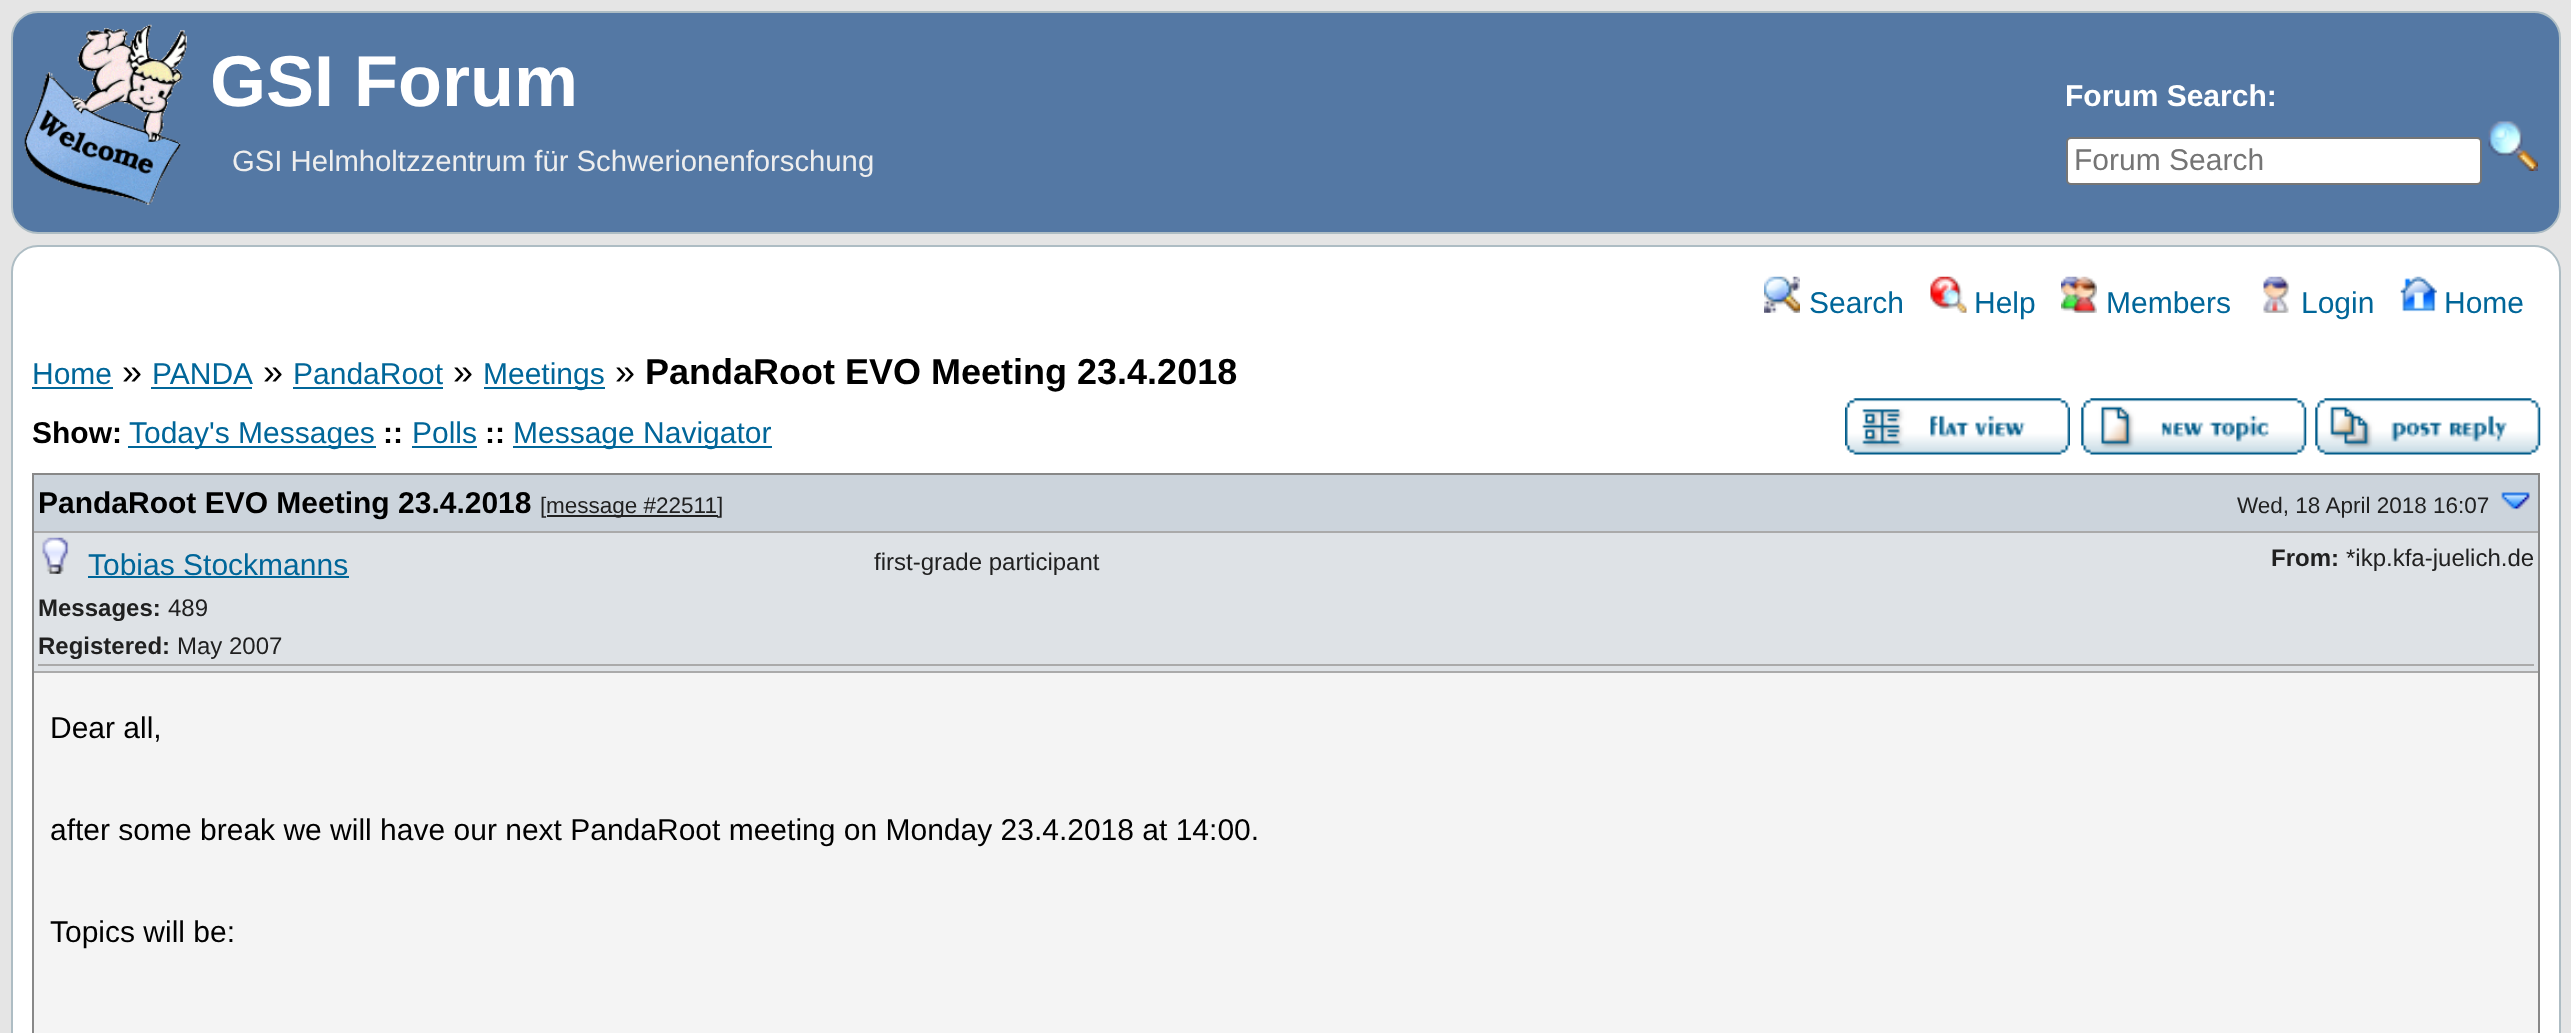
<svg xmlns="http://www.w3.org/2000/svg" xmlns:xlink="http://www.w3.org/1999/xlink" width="2571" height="1033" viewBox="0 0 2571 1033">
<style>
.cls-1{font:bold 72px Liberation Sans;fill:#ffffff}
.cls-2{font:bold 30px Liberation Sans;fill:#ffffff}
.cls-3{font:30px Liberation Sans;fill:#757575}
.cls-4{font:29.25px Liberation Sans;fill:#eeeeee}
.cls-5{font:30px Liberation Sans;fill:#006699}
.cls-6{font:36px Liberation Sans;fill:#000000}
.cls-7{font:bold 36px Liberation Sans;fill:#000000}
.cls-8{font:bold 30px Liberation Sans;fill:#000000}
.cls-9{font:22.5px Liberation Sans;fill:#202020}
.cls-10{font:bold 24px Liberation Sans;fill:#202020}
.cls-11{font:24px Liberation Sans;fill:#202020}
.cls-12{font:30px Liberation Sans;fill:#000000}
</style>
<rect width="100%" height="100%" fill="#e5e5e5"/>
<rect fill="#5478a4" stroke="#aebdc4" stroke-width="2" x="12" y="12" width="2548" height="221" rx="26"/>
<image xlink:href="image0.png" x="24" y="24" width="163" height="181"/>
<rect fill="#ffffff" stroke="#767676" stroke-width="2" x="2067" y="138" width="414" height="46" rx="4"/>
<image xlink:href="image1.png" x="2488" y="121" width="50" height="50"/>
<rect fill="#ffffff" stroke="#aebdc4" stroke-width="2" x="12" y="246" width="2548" height="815" rx="26"/>
<image xlink:href="image2.png" x="1764" y="276" width="36" height="37"/>
<image xlink:href="image3.png" x="1930" y="276" width="37" height="37"/>
<image xlink:href="image4.png" x="2061" y="276" width="36" height="37"/>
<image xlink:href="image5.png" x="2263" y="276" width="27" height="37"/>
<image xlink:href="image6.png" x="2400" y="276" width="37" height="36"/>
<rect fill="#006699" x="32" y="387" width="81" height="2"/>
<rect fill="#006699" x="151" y="387" width="101" height="2"/>
<rect fill="#006699" x="293" y="387" width="150" height="2"/>
<rect fill="#006699" x="484" y="387" width="121" height="2"/>
<rect fill="#006699" x="128" y="446" width="248" height="2"/>
<rect fill="#006699" x="412" y="446" width="65" height="2"/>
<rect fill="#006699" x="513" y="446" width="259" height="2"/>
<image xlink:href="image7.png" x="1845" y="398" width="225" height="57"/>
<image xlink:href="image8.png" x="2081" y="398" width="226" height="57"/>
<image xlink:href="image9.png" x="2315" y="398" width="226" height="57"/>
<rect fill="none" stroke="#888888" stroke-width="2" x="33" y="474" width="2506" height="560"/>
<rect fill="#ccd4dc" x="34" y="475" width="2504" height="56"/>
<rect fill="#aaaaaa" x="34" y="531" width="2504" height="2"/>
<rect fill="#202020" x="547" y="515" width="171" height="2"/>
<image xlink:href="image10.png" x="2501" y="492" width="29" height="18"/>
<rect fill="#dee2e6" x="34" y="533" width="2504" height="138"/>
<rect fill="#aaaaaa" x="34" y="671" width="2504" height="2"/>
<rect fill="#aaaaaa" x="38" y="664" width="2496" height="2"/>
<image xlink:href="image11.png" x="42" y="537" width="27" height="37"/>
<rect fill="#006699" x="88" y="576" width="261" height="2"/>
<rect fill="#f4f4f4" x="34" y="673" width="2504" height="360"/>
<text class="cls-1" x="210" y="106">GSI Forum</text>
<text class="cls-2" x="2065" y="106">Forum Search:</text>
<text class="cls-3" x="2074" y="170">Forum Search</text>
<text class="cls-4" x="232" y="171">GSI Helmholtzzentrum für Schwerionenforschung</text>
<text class="cls-5" x="1809" y="313">Search</text>
<text class="cls-5" x="1974" y="313">Help</text>
<text class="cls-5" x="2106" y="313">Members</text>
<text class="cls-5" x="2301" y="313">Login</text>
<text class="cls-5" x="2444" y="313">Home</text>
<text class="cls-5" x="32" y="384">Home</text>
<text class="cls-6" x="122" y="384">»</text>
<text class="cls-5" x="152" y="384">PANDA</text>
<text class="cls-6" x="263" y="384">»</text>
<text class="cls-5" x="293" y="384">PandaRoot</text>
<text class="cls-6" x="453" y="384">»</text>
<text class="cls-5" x="483" y="384">Meetings</text>
<text class="cls-6" x="615" y="384">»</text>
<text class="cls-7" x="645" y="384">PandaRoot EVO Meeting 23.4.2018</text>
<text class="cls-8" x="32" y="443">Show:</text>
<text class="cls-5" x="129" y="443">Today's Messages</text>
<text class="cls-8" x="383" y="443">::</text>
<text class="cls-5" x="412" y="443">Polls</text>
<text class="cls-8" x="485" y="443">::</text>
<text class="cls-5" x="513" y="443">Message Navigator</text>
<text class="cls-8" x="38" y="513">PandaRoot EVO Meeting 23.4.2018</text>
<text class="cls-9" x="540" y="513">[</text>
<text class="cls-9" x="546" y="513">message #22511]</text>
<text class="cls-9" x="2237" y="513">Wed, 18 April 2018 16:07</text>
<text class="cls-5" x="88" y="575">Tobias Stockmanns</text>
<text class="cls-10" x="38" y="616">Messages:</text>
<text class="cls-11" x="168" y="616">489</text>
<text class="cls-10" x="38" y="654">Registered:</text>
<text class="cls-11" x="177" y="654">May 2007</text>
<text class="cls-11" x="874" y="570">first-grade participant</text>
<text class="cls-10" x="2271" y="566">From:</text>
<text class="cls-11" x="2346" y="566">*ikp.kfa-juelich.de</text>
<text class="cls-12" x="50" y="738">Dear all,</text>
<text class="cls-12" x="50" y="840">after some break we will have our next PandaRoot meeting on Monday 23.4.2018 at 14:00.</text>
<text class="cls-12" x="50" y="942">Topics will be:</text>
</svg>
